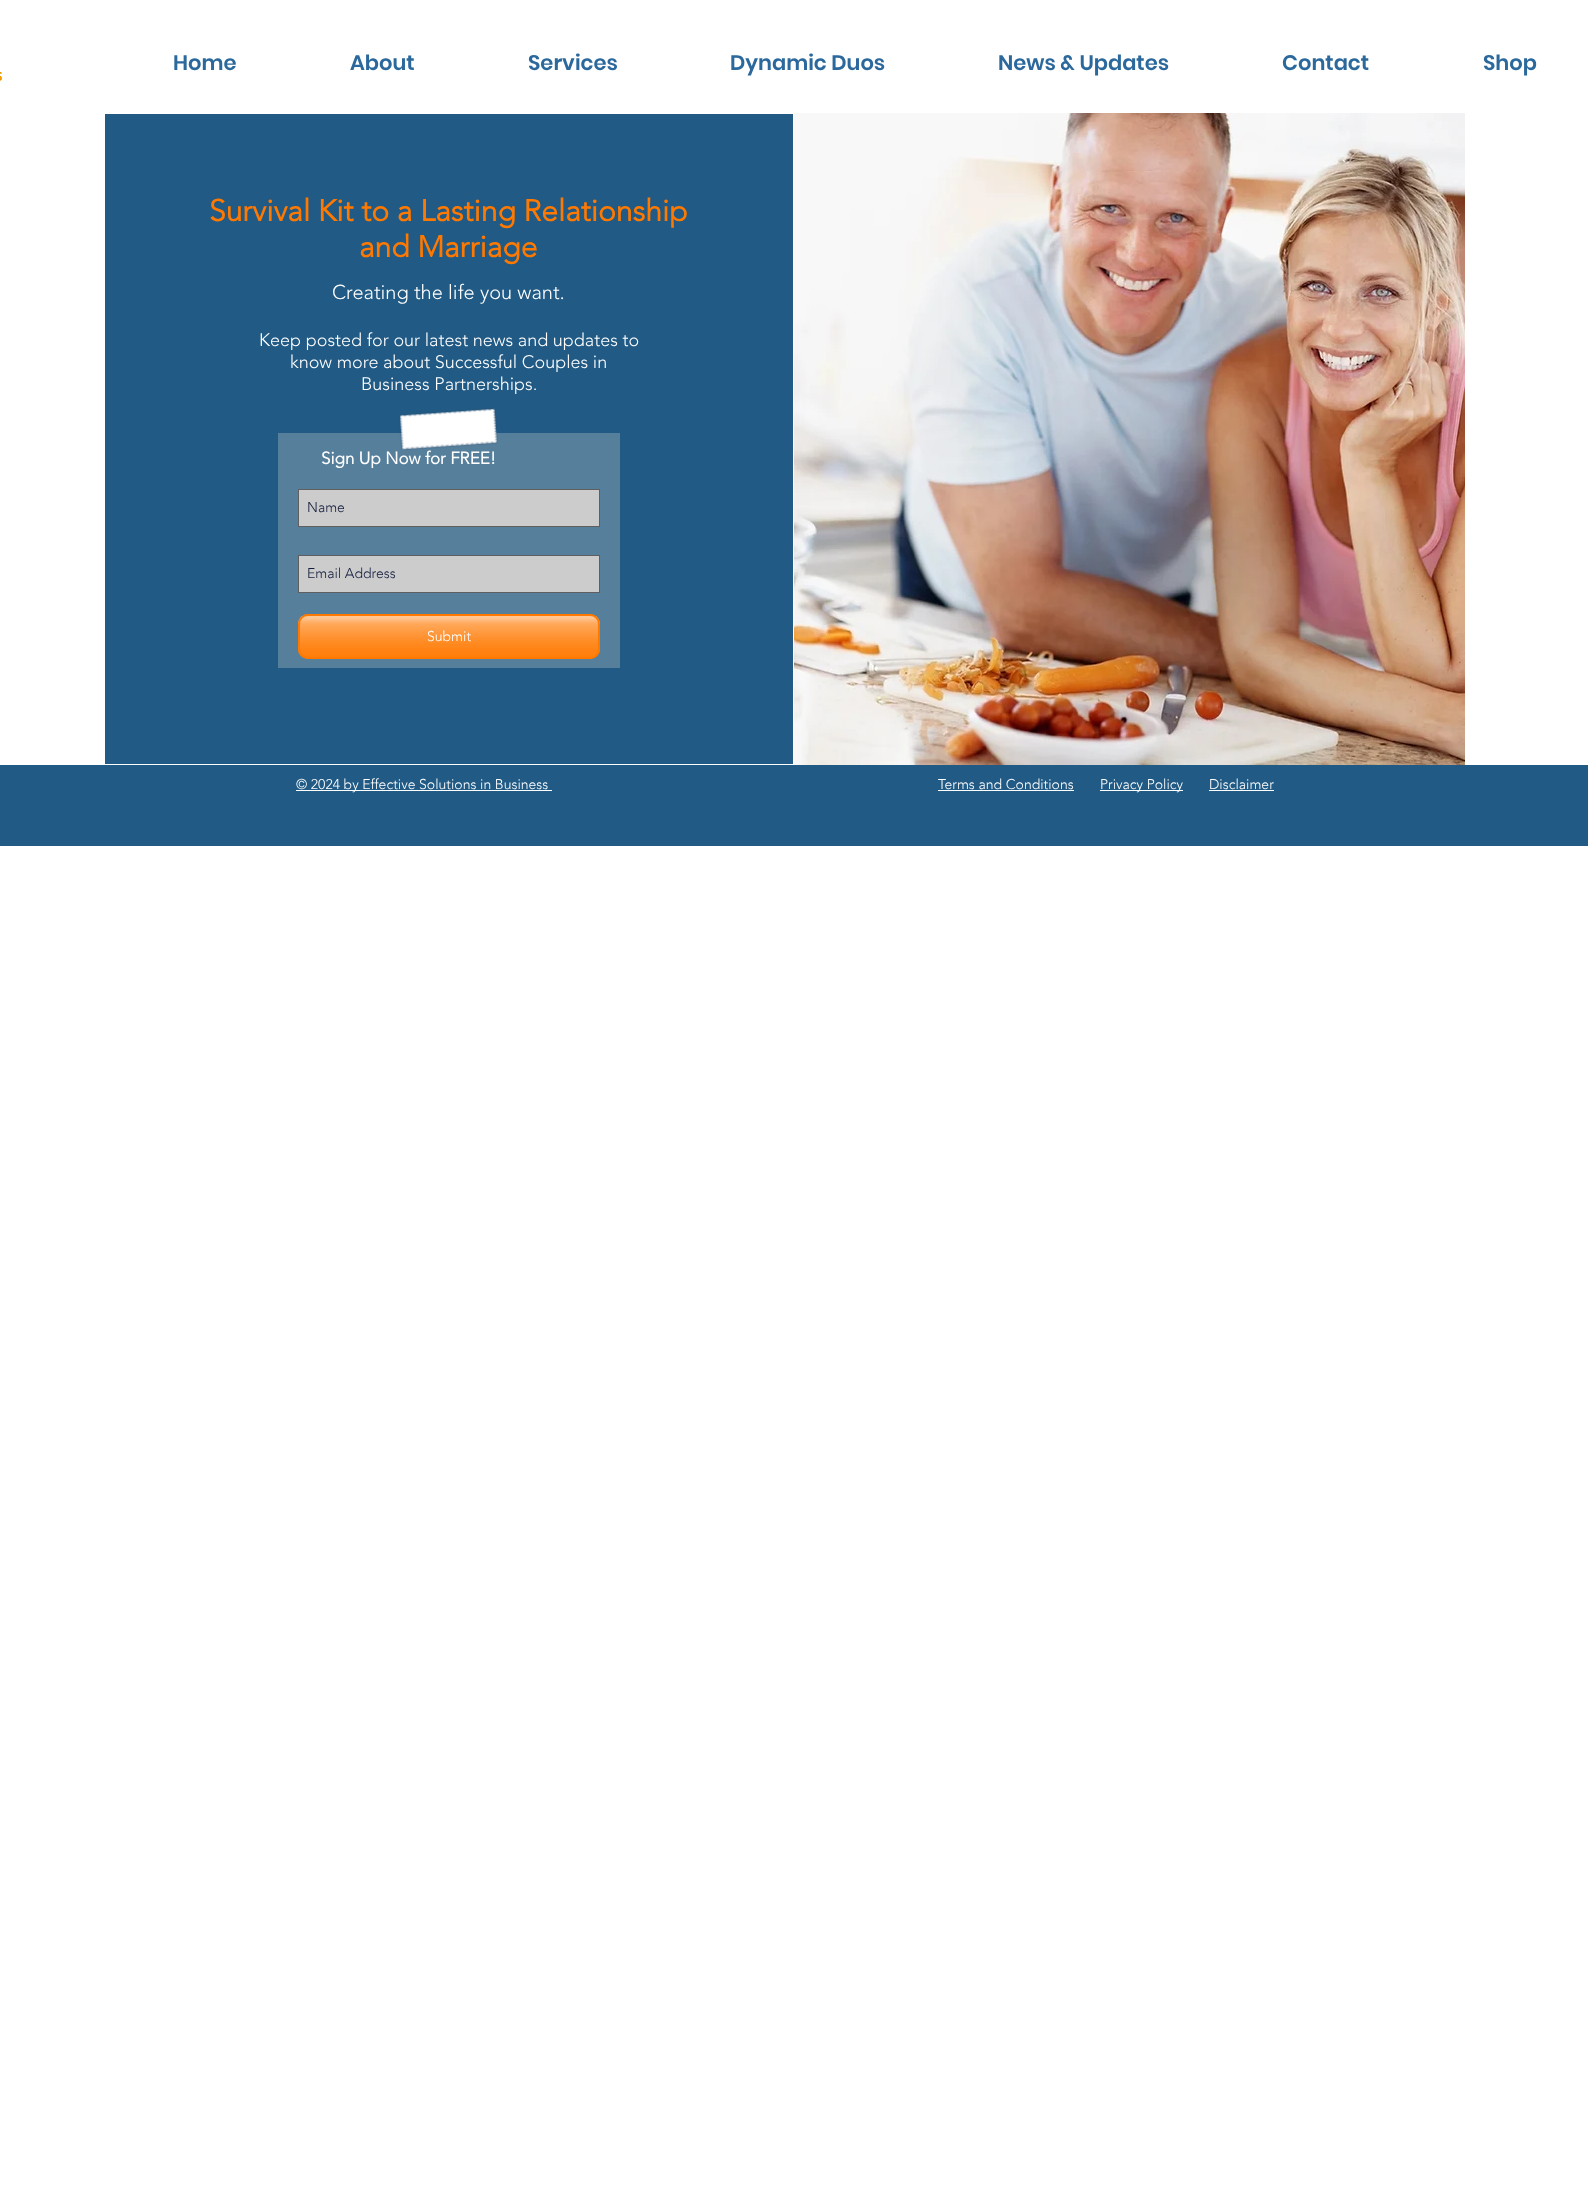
<svg xmlns="http://www.w3.org/2000/svg" xmlns:xlink="http://www.w3.org/1999/xlink" width="1588" height="2200" viewBox="0 0 1588 2200">
<style>
.cls-1{font:600 21px Poppins;fill:#2b689c}
.cls-2{font:bold 30px 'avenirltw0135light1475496';fill:#ff7900}
.cls-3{font:300 20px 'avenirltw0135light1475496';fill:#ffffff}
.cls-4{font:300 18px 'avenirltw0135light1475496';fill:#ffffff}
.cls-5{font:bold 17px 'avenirltw0135light1475496';fill:#ffffff}
.cls-6{font:300 14px 'avenirltw0135light1475496';fill:#141d3d}
.cls-7{font:300 14px 'avenirltw0135light1475496';fill:#ffffff}
</style>
<rect width="100%" height="100%" fill="#ffffff"/>
<image xlink:href="image0.png" x="0" y="72" width="2" height="9"/>
<rect fill="#215b85" x="105" y="114" width="688" height="650"/>
<rect fill="#567f9c" x="278" y="433" width="342" height="235"/>
<image xlink:href="image1.png" x="399" y="408" width="99" height="42"/>
<rect fill="#cccccc" stroke="#605e5e" x="298.5" y="489.5" width="301" height="37"/>
<rect fill="#cccccc" stroke="#605e5e" x="298.5" y="555.5" width="301" height="37"/>
<rect fill="#ff7900" x="298" y="614" width="302" height="45" rx="10"/>
<image xlink:href="image2.png" x="298" y="616" width="302" height="43"/>
<rect fill="none" stroke="#ff7900" stroke-width="2" x="299" y="615" width="300" height="43" rx="9"/>
<image xlink:href="image3.png" x="794" y="113" width="671" height="652"/>
<rect fill="#215b85" x="0" y="765" width="1588" height="81"/>
<rect fill="#ffffff" x="296" y="790" width="256" height="1"/>
<rect fill="#ffffff" x="938" y="790" width="136" height="1"/>
<rect fill="#ffffff" x="1100" y="790" width="83" height="1"/>
<rect fill="#ffffff" x="1209" y="790" width="65" height="1"/>
<text class="cls-1" x="173" y="70">Home</text>
<text class="cls-1" x="350" y="70">About</text>
<text class="cls-1" x="528" y="70">Services</text>
<text class="cls-1" x="730" y="70">Dynamic Duos</text>
<text class="cls-1" x="998" y="70">News &amp; Updates</text>
<text class="cls-1" x="1282" y="70">Contact</text>
<text class="cls-1" x="1483" y="70">Shop</text>
<text class="cls-2" x="209" y="221">Survival Kit to a Lasting Relationship</text>
<text class="cls-2" x="359" y="257">and Marriage</text>
<text class="cls-3" x="332" y="299">Creating the life you want.</text>
<text class="cls-4" x="259" y="346">Keep posted for our latest news and updates to</text>
<text class="cls-4" x="290" y="368">know more about Successful Couples in</text>
<text class="cls-4" x="361" y="390">Business Partnerships.</text>
<text class="cls-5" x="321" y="464">Sign Up Now for FREE!</text>
<text class="cls-6" x="307" y="512">Name</text>
<text class="cls-6" x="307" y="578">Email Address</text>
<text class="cls-7" x="427" y="641">Submit</text>
<text class="cls-7" x="296" y="789">© 2024 by Effective Solutions in Business</text>
<text class="cls-7" x="938" y="789">Terms and Conditions</text>
<text class="cls-7" x="1100" y="789">Privacy Policy</text>
<text class="cls-7" x="1209" y="789">Disclaimer</text>
</svg>
